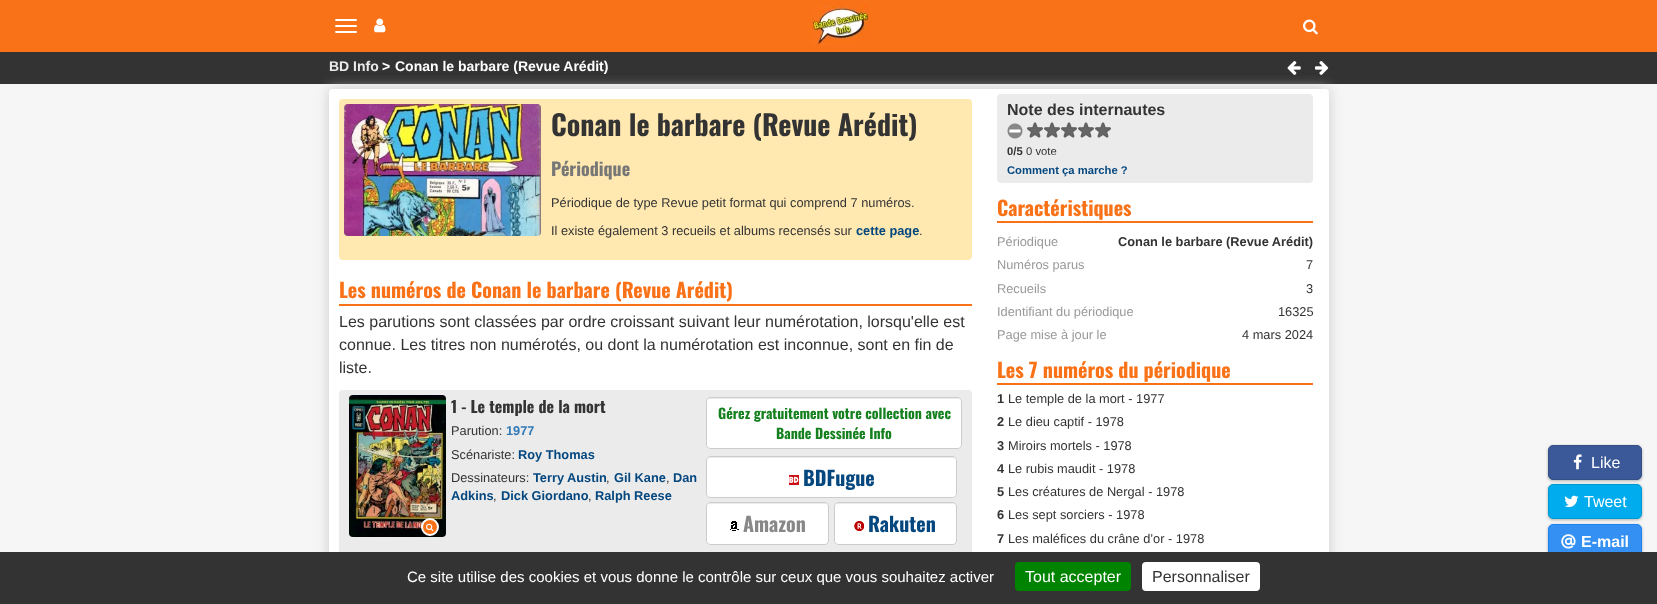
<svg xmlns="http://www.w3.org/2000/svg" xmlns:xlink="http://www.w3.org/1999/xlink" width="1657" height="604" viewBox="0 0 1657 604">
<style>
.cls-1{font:bold 14px Liberation Sans;fill:#ebebeb}
.cls-2{font:bold 14px Liberation Sans;fill:#ffffff}
.cls-3{font:bold 28px Oswald;fill:#333333}
.cls-4{font:bold 18px Oswald;fill:#777777}
.cls-5{font:12.8px Liberation Sans;fill:#333333}
.cls-6{font:bold 12.8px Liberation Sans;fill:#04477f}
.cls-7{font:bold 20px Oswald;fill:#fa7218}
.cls-8{font:16px Liberation Sans;fill:#333333}
.cls-9{font:bold 16px Oswald;fill:#333333}
.cls-10{font:bold 12.8px Liberation Sans;fill:#337ab7}
.cls-11{font:bold 14px Oswald;fill:#14801e}
.cls-12{font:bold 20px Oswald;fill:#04477f}
.cls-13{font:bold 20px Oswald;fill:#888888}
.cls-14{font:bold 16px Liberation Sans;fill:#333333}
.cls-15{font:bold 11.25px Liberation Sans;fill:#333333}
.cls-16{font:11.25px Liberation Sans;fill:#333333}
.cls-17{font:bold 11.25px Liberation Sans;fill:#04477f}
.cls-18{font:12.8px Liberation Sans;fill:#999999}
.cls-19{font:bold 12.8px Liberation Sans;fill:#333333}
.cls-20{font:16px Liberation Sans;fill:#ffffff}
.cls-21{font:bold 16px Liberation Sans;fill:#ffffff}
.cls-22{font:15px Liberation Sans;fill:#ffffff}
</style>
<rect width="100%" height="100%" fill="#f6f6f6"/>
<rect fill="#fa7218" x="0" y="0" width="1657" height="52"/>
<rect fill="#ffffff" x="335" y="19" width="22" height="2" rx="1"/>
<rect fill="#ffffff" x="335" y="25" width="22" height="2" rx="1"/>
<rect fill="#ffffff" x="335" y="31" width="22" height="2" rx="1"/>
<image xlink:href="image0.png" x="374" y="18" width="12" height="15"/>
<image xlink:href="image1.png" x="812" y="6" width="57" height="40"/>
<image xlink:href="image2.png" x="1303" y="19" width="15" height="16"/>
<rect fill="#333333" x="0" y="52" width="1657" height="32"/>
<rect fill="#cccccc" filter="blur(6.5px)" x="329" y="89" width="1000" height="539" rx="4"/>
<image xlink:href="image3.png" x="1287" y="61" width="14" height="14"/>
<image xlink:href="image4.png" x="1315" y="61" width="14" height="14"/>
<rect fill="#ffffff" x="329" y="89" width="1000" height="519" rx="4"/>
<rect fill="#ffe9b1" x="339" y="99" width="633" height="161" rx="4"/>
<image xlink:href="image5.png" x="344" y="104" width="197" height="132"/>
<rect fill="#fa7218" x="339" y="304" width="633" height="2"/>
<rect fill="#ebebeb" x="339" y="390" width="633" height="167" rx="4"/>
<image xlink:href="image6.png" x="349" y="395" width="97" height="142"/>
<circle fill="#fa7218" stroke="#ffffff" stroke-width="2" cx="430" cy="527" r="8"/>
<image xlink:href="image7.png" x="426" y="523" width="8" height="9"/>
<rect fill="#ffffff" x="706" y="397" width="256" height="52" rx="4"/>
<path fill="#ececec" d="M710 399H959L961 400V402C961 400 960 398 958 398H710C708 398 707 400 707 402C707 400 708 399 710 399Z"/>
<rect fill="none" stroke="#cccccc" x="706.5" y="397.5" width="255" height="51" rx="3.5"/>
<rect fill="#ffffff" x="706" y="456" width="251" height="42" rx="4"/>
<path fill="#ececec" d="M710 458H954L956 459V461C956 459 955 457 953 457H710C708 457 707 459 707 461C707 459 708 458 710 458Z"/>
<rect fill="none" stroke="#cccccc" x="706.5" y="456.5" width="250" height="41" rx="3.5"/>
<image xlink:href="image8.png" x="789" y="475" width="10" height="10"/>
<rect fill="#ffffff" x="706" y="502" width="123" height="43" rx="4"/>
<path fill="#ececec" d="M710 504H825C827 504 828 505 828 507C828 505 827 503 825 503H729C728 503 707 498 707 507C707 505 708 504 710 504Z"/>
<rect fill="none" stroke="#cccccc" x="706.5" y="502.5" width="122" height="42" rx="3.5"/>
<image xlink:href="image9.png" x="730" y="521" width="9" height="10"/>
<rect fill="#ffffff" x="834" y="502" width="123" height="43" rx="4"/>
<path fill="#ececec" d="M838 504H953C955 504 956 505 956 507C956 505 955 503 953 503H857C856 503 835 498 835 507C835 505 836 504 838 504Z"/>
<rect fill="none" stroke="#cccccc" x="834.5" y="502.5" width="122" height="42" rx="3.5"/>
<image xlink:href="image10.png" x="854" y="521" width="10" height="10"/>
<rect fill="#ebebeb" x="997" y="94" width="316" height="89" rx="4"/>
<image xlink:href="image11.png" x="1007" y="123" width="16" height="16"/>
<image xlink:href="image12.png" x="1027" y="122" width="16" height="16"/>
<image xlink:href="image12.png" x="1044" y="122" width="16" height="16"/>
<image xlink:href="image12.png" x="1061" y="122" width="16" height="16"/>
<image xlink:href="image12.png" x="1078" y="122" width="16" height="16"/>
<image xlink:href="image12.png" x="1095" y="122" width="16" height="16"/>
<rect fill="#fa7218" x="997" y="221" width="316" height="2"/>
<rect fill="#fa7218" x="997" y="383" width="316" height="2"/>
<rect fill="#000000" fill-opacity="0.15" filter="blur(1.5px)" x="1548" y="446" width="94" height="35" rx="5"/>
<rect fill="#000000" fill-opacity="0.15" filter="blur(1.5px)" x="1548" y="446" width="94" height="35" rx="5"/>
<rect fill="#3b5998" stroke="#344e86" x="1548.5" y="445.5" width="93" height="34" rx="4.5"/>
<image xlink:href="image13.png" x="1573" y="454" width="9" height="16"/>
<rect fill="#000000" fill-opacity="0.15" filter="blur(1.5px)" x="1548" y="485" width="94" height="35" rx="5"/>
<rect fill="#000000" fill-opacity="0.15" filter="blur(1.5px)" x="1548" y="485" width="94" height="35" rx="5"/>
<rect fill="#00aced" stroke="#0099d4" x="1548.5" y="484.5" width="93" height="34" rx="4.5"/>
<image xlink:href="image14.png" x="1564" y="495" width="15" height="13"/>
<rect fill="#000000" fill-opacity="0.15" filter="blur(1.5px)" x="1548" y="525" width="94" height="35" rx="5"/>
<rect fill="#000000" fill-opacity="0.15" filter="blur(1.5px)" x="1548" y="525" width="94" height="35" rx="5"/>
<rect fill="#3490f3" stroke="#1c83f2" x="1548.5" y="524.5" width="93" height="34" rx="4.5"/>
<image xlink:href="image15.png" x="1561" y="534" width="15" height="15"/>
<rect fill="#333333" x="0" y="552" width="1657" height="52"/>
<rect fill="#008300" x="1015" y="562" width="116" height="29" rx="4"/>
<rect fill="#ffffff" x="1142" y="562" width="118" height="29" rx="4"/>
<text class="cls-1" x="329" y="71">BD Info</text>
<text class="cls-2" x="382" y="71">&gt;</text>
<text class="cls-2" x="395" y="71">Conan le barbare (Revue Arédit)</text>
<text class="cls-3" x="551" y="136">Conan le barbare (Revue Arédit)</text>
<text class="cls-4" x="551" y="176">Périodique</text>
<text class="cls-5" x="551" y="207">Périodique de type Revue petit format qui comprend 7 numéros.</text>
<text class="cls-5" x="551" y="235">Il existe également 3 recueils et albums recensés sur</text>
<text class="cls-6" x="856" y="235">cette page</text>
<text class="cls-5" x="919" y="235">.</text>
<text class="cls-7" x="339" y="298">Les numéros de Conan le barbare (Revue Arédit)</text>
<text class="cls-8"><tspan x="339" y="327">Les parutions sont classées par ordre croissant suivant leur numérotation, lorsqu'elle est</tspan><tspan x="339" y="350">connue. Les titres non numérotés, ou dont la numérotation est inconnue, sont en fin de</tspan><tspan x="339" y="373">liste.</tspan></text>
<text class="cls-9" x="451" y="413">1 - Le temple de la mort</text>
<text class="cls-5" x="451" y="435">Parution:</text>
<text class="cls-10" x="506" y="435">1977</text>
<text class="cls-5" x="451" y="459">Scénariste:</text>
<text class="cls-6" x="518" y="459">Roy Thomas</text>
<text class="cls-5" x="451" y="482">Dessinateurs:</text>
<text class="cls-6" x="533" y="482">Terry</text>
<text class="cls-6" x="567" y="482">Austin</text>
<text class="cls-5" x="606" y="482">,</text>
<text class="cls-6" x="614" y="482">Gil Kane</text>
<text class="cls-5" x="666" y="482">,</text>
<text class="cls-6" x="673" y="482">Dan</text>
<text class="cls-6" x="451" y="500">Adkins</text>
<text class="cls-5" x="493" y="500">,</text>
<text class="cls-6" x="501" y="500">Dick Giordano</text>
<text class="cls-5" x="588" y="500">,</text>
<text class="cls-6" x="595" y="500">Ralph Reese</text>
<text class="cls-11" x="718" y="419">Gérez gratuitement votre collection avec</text>
<text class="cls-11" x="776" y="439">Bande Dessinée Info</text>
<text class="cls-12" x="803" y="486">BDFugue</text>
<text class="cls-13" x="743" y="532">Amazon</text>
<text class="cls-12" x="868" y="532">Rakuten</text>
<text class="cls-14" x="1007" y="115">Note des internautes</text>
<text class="cls-15" x="1007" y="155">0/5</text>
<text class="cls-16" x="1026" y="155">0 vote</text>
<text class="cls-17" x="1007" y="174">Comment ça marche ?</text>
<text class="cls-7" x="997" y="216">Caractéristiques</text>
<text class="cls-18" x="997" y="246">Périodique</text>
<text class="cls-19" x="1118" y="246">Conan le barbare (Revue Arédit)</text>
<text class="cls-18" x="997" y="269">Numéros parus</text>
<text class="cls-5" x="1306" y="269">7</text>
<text class="cls-18" x="997" y="293">Recueils</text>
<text class="cls-5" x="1306" y="293">3</text>
<text class="cls-18" x="997" y="316">Identifiant du périodique</text>
<text class="cls-5" x="1278" y="316">16325</text>
<text class="cls-18" x="997" y="339">Page mise à jour le</text>
<text class="cls-5" x="1242" y="339">4 mars 2024</text>
<text class="cls-7" x="997" y="378">Les 7 numéros du périodique</text>
<text class="cls-19" x="997" y="403">1</text>
<text class="cls-5" x="1008" y="403">Le temple de la mort - 1977</text>
<text class="cls-19" x="997" y="426">2</text>
<text class="cls-5" x="1008" y="426">Le dieu captif - 1978</text>
<text class="cls-19" x="997" y="450">3</text>
<text class="cls-5" x="1008" y="450">Miroirs mortels - 1978</text>
<text class="cls-19" x="997" y="473">4</text>
<text class="cls-5" x="1008" y="473">Le rubis maudit - 1978</text>
<text class="cls-19" x="997" y="496">5</text>
<text class="cls-5" x="1008" y="496">Les créatures de Nergal - 1978</text>
<text class="cls-19" x="997" y="519">6</text>
<text class="cls-5" x="1008" y="519">Les sept sorciers - 1978</text>
<text class="cls-19" x="997" y="543">7</text>
<text class="cls-5" x="1008" y="543">Les maléfices du crâne d’or - 1978</text>
<text class="cls-20" x="1591" y="468">Like</text>
<text class="cls-20" x="1584" y="507">Tweet</text>
<text class="cls-21" x="1581" y="547">E-mail</text>
<text class="cls-22" x="407" y="582">Ce site utilise des cookies et vous donne le contrôle sur ceux que vous souhaitez activer</text>
<text class="cls-20" x="1025" y="582">Tout accepter</text>
<text class="cls-8" x="1152" y="582">Personnaliser</text>
</svg>
